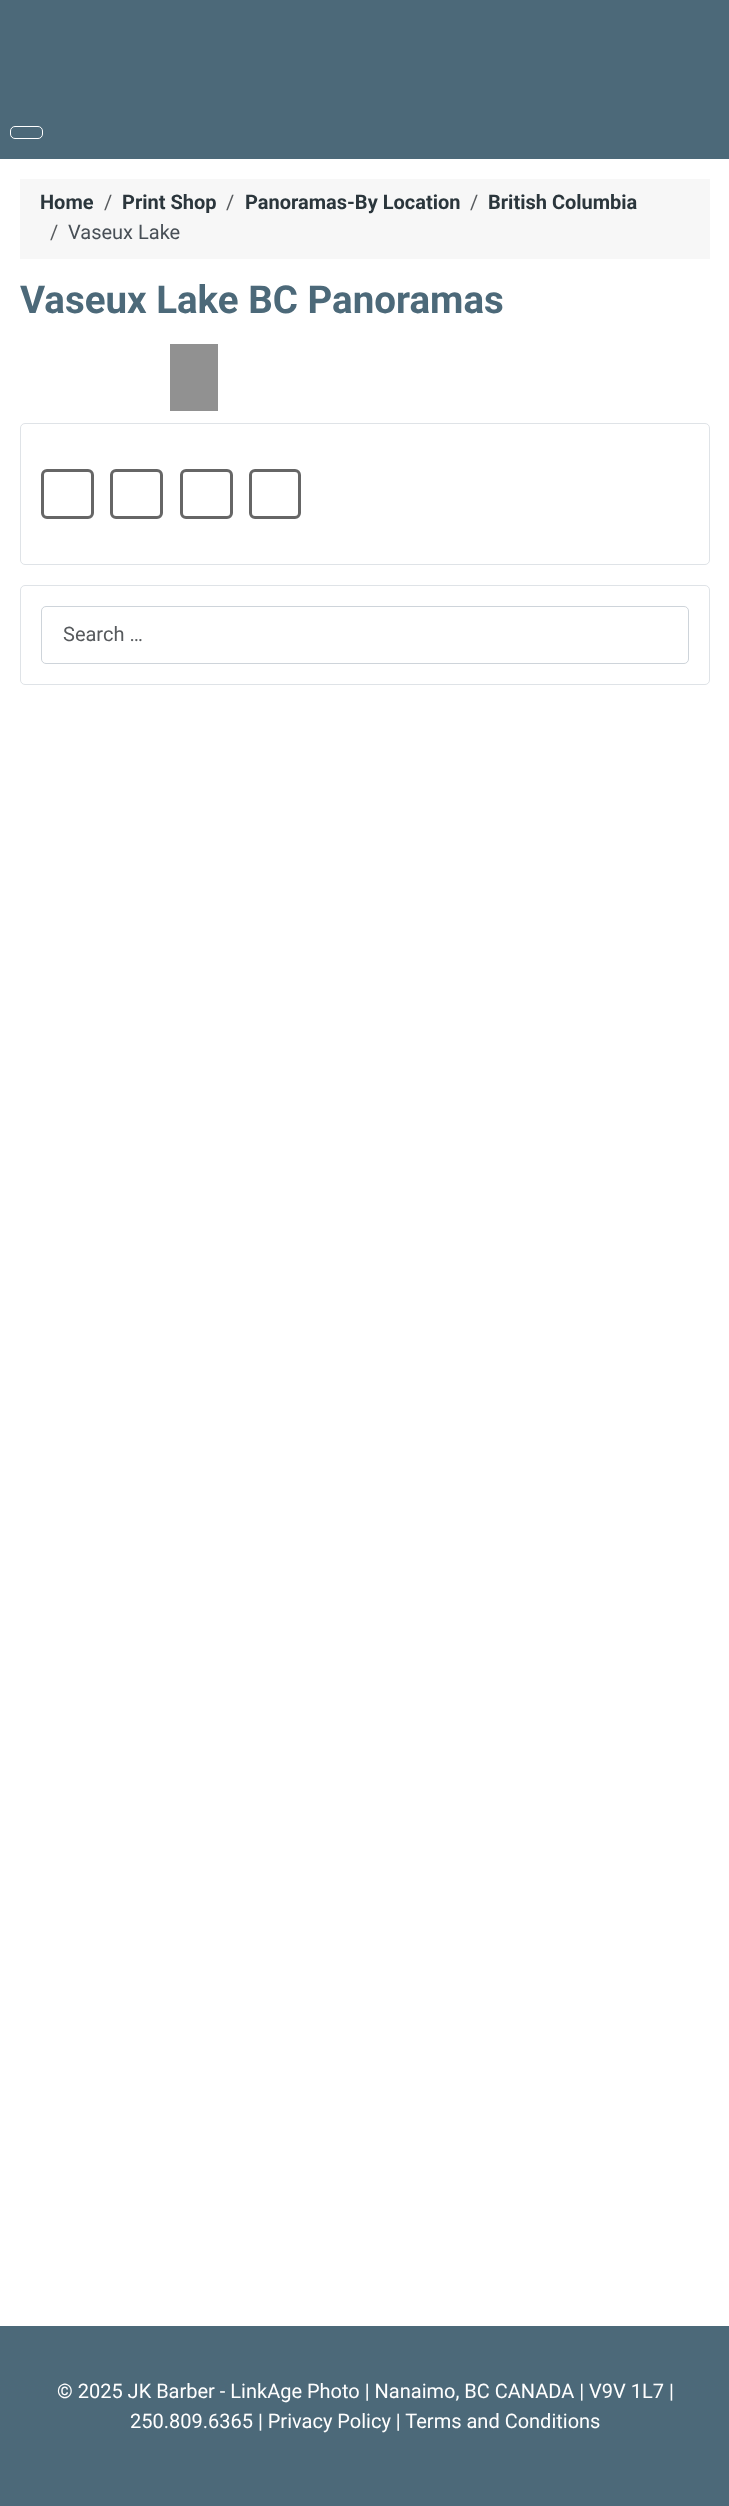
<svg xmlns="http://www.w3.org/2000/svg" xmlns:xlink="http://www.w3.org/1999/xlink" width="729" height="2506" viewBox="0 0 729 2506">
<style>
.cls-1{font:bold 20px Roboto;fill:#2b363c}
.cls-2{font:20px Roboto;fill:#575a5d}
.cls-3{font:20px Roboto;fill:#484f56}
.cls-4{font:bold 38.5px Roboto;fill:#4c6979}
.cls-5{font:20px Roboto;fill:#ffffff}
</style>
<rect width="100%" height="100%" fill="#ffffff"/>
<rect fill="#4c6979" x="0" y="0" width="729" height="159"/>
<rect fill="none" stroke="#ffffff" x="10.5" y="126.5" width="32" height="12" rx="4.5"/>
<rect fill="#f7f7f7" x="20" y="179" width="690" height="80"/>
<rect fill="#919191" x="170" y="344" width="48" height="67"/>
<rect fill="none" stroke="#dfe3e7" x="20.5" y="423.5" width="689" height="141" rx="4.5"/>
<rect fill="none" stroke="#666666" stroke-width="3" x="42.5" y="470.5" width="50" height="47" rx="4.5"/>
<rect fill="none" stroke="#666666" stroke-width="3" x="111.5" y="470.5" width="50" height="47" rx="4.5"/>
<rect fill="none" stroke="#666666" stroke-width="3" x="181.5" y="470.5" width="50" height="47" rx="4.5"/>
<rect fill="none" stroke="#666666" stroke-width="3" x="250.5" y="470.5" width="49" height="47" rx="4.5"/>
<rect fill="none" stroke="#dfe3e7" x="20.5" y="585.5" width="689" height="99" rx="4.5"/>
<rect fill="none" stroke="#ced4da" x="41.5" y="606.5" width="647" height="57" rx="4.5"/>
<rect fill="#4c6979" x="0" y="2326" width="729" height="180"/>
<text class="cls-1" x="40" y="209">Home</text>
<text class="cls-2" x="104" y="209">/</text>
<text class="cls-1" x="122" y="209">Print Shop</text>
<text class="cls-2" x="226" y="209">/</text>
<text class="cls-1" x="245" y="209">Panoramas-By Location</text>
<text class="cls-2" x="470" y="209">/</text>
<text class="cls-1" x="488" y="209">British Columbia</text>
<text class="cls-2" x="50" y="239">/</text>
<text class="cls-3" x="68" y="239">Vaseux Lake</text>
<text class="cls-4" x="20" y="313">Vaseux Lake BC Panoramas</text>
<text class="cls-2" x="63" y="641">Search …</text>
<text class="cls-5" x="57" y="2398">© 2025 JK Barber - LinkAge Photo | Nanaimo, BC CANADA | V9V 1L7 |</text>
<text class="cls-5" x="130" y="2428">250.809.6365 | Privacy Policy | Terms and Conditions</text>
</svg>
